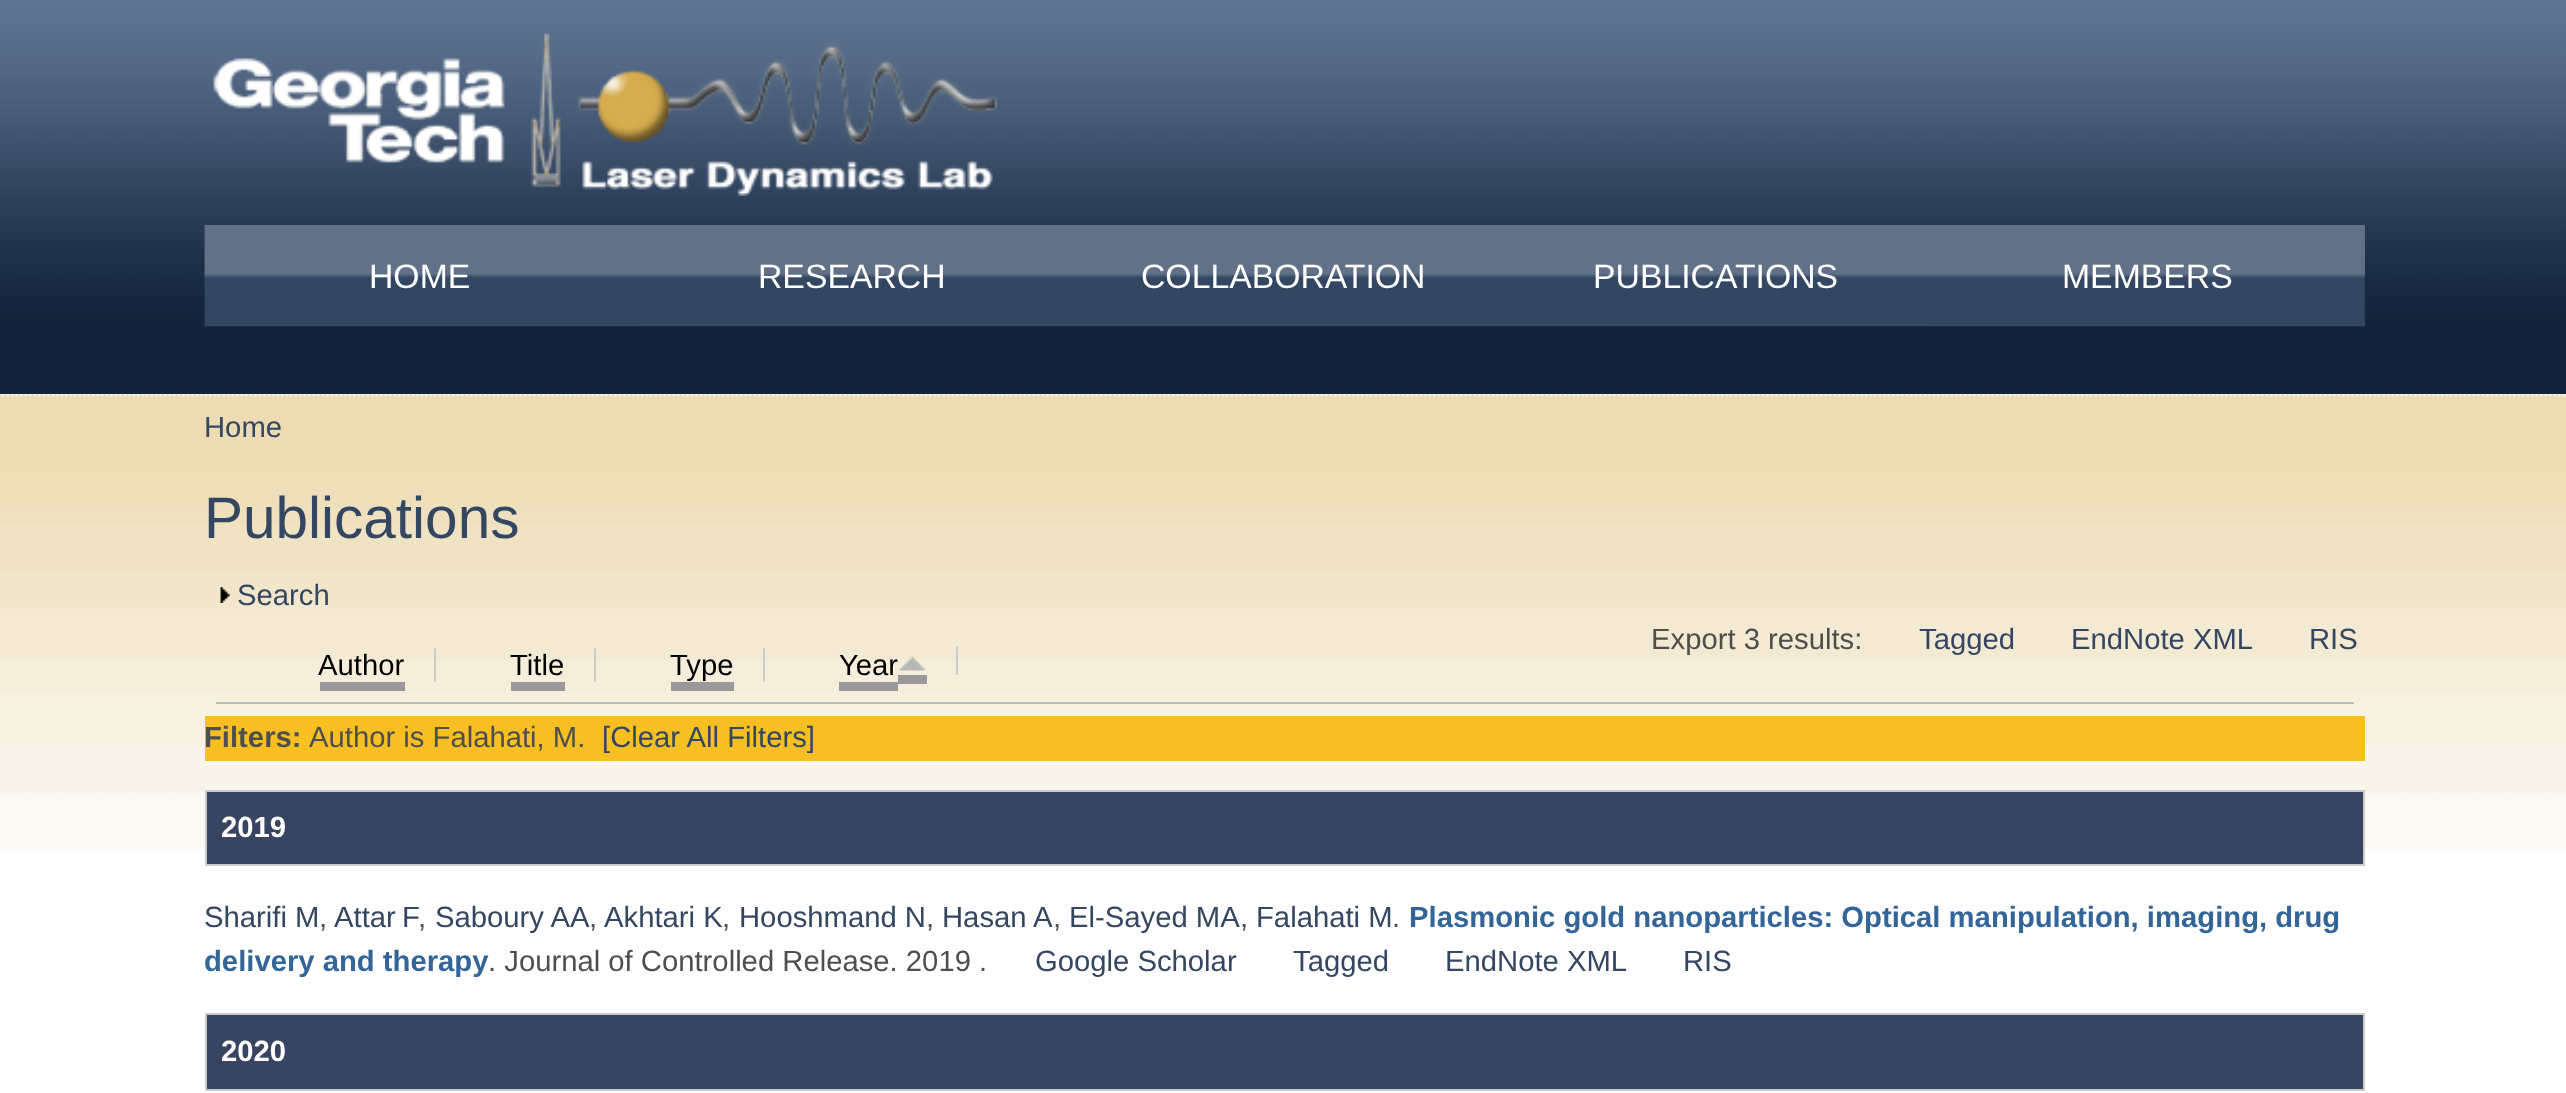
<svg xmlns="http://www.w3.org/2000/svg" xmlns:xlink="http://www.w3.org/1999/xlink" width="2566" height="1093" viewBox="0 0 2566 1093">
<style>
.cls-1{font:33.75px Liberation Sans;fill:#ffffff}
.cls-2{font:29.25px Liberation Sans;fill:#334662}
.cls-3{font:58.5px Liberation Sans;fill:#334662}
.cls-4{font:29.25px Liberation Sans;fill:#4f4e4e}
.cls-5{font:29.25px Liberation Sans;fill:#000000}
.cls-6{font:bold 29.25px Liberation Sans;fill:#4f4e4e}
.cls-7{font:bold 29.25px Liberation Sans;fill:#ffffff}
.cls-8{font:bold 29.25px Liberation Sans;fill:#336599}
</style>
<rect width="100%" height="100%" fill="#ffffff"/>
<image xlink:href="image0.png" x="0" y="0" width="2566" height="326"/>
<image xlink:href="image1.png" x="213" y="33" width="785" height="163"/>
<image xlink:href="image2.png" x="204" y="225" width="2161" height="101"/>
<rect fill="#12233b" x="0" y="326" width="2566" height="68"/>
<image xlink:href="image3.png" x="204" y="225" width="433" height="102"/>
<image xlink:href="image4.png" x="637" y="325" width="432" height="2"/>
<image xlink:href="image4.png" x="1069" y="325" width="432" height="2"/>
<image xlink:href="image4.png" x="1501" y="325" width="432" height="2"/>
<image xlink:href="image5.png" x="1933" y="225" width="432" height="102"/>
<image xlink:href="image6.png" x="0" y="394" width="2566" height="455"/>
<image xlink:href="image7.png" x="220" y="587" width="11" height="16"/>
<rect fill="#bbbbbb" x="216" y="702" width="2138" height="2"/>
<rect fill="#cccccc" x="434" y="648" width="2" height="34"/>
<rect fill="#999999" x="320" y="682" width="85" height="9"/>
<rect fill="#cccccc" x="594" y="648" width="2" height="34"/>
<rect fill="#999999" x="511" y="682" width="54" height="9"/>
<rect fill="#cccccc" x="763" y="648" width="2" height="34"/>
<rect fill="#999999" x="671" y="682" width="63" height="9"/>
<rect fill="#cccccc" x="956" y="646" width="2" height="29"/>
<rect fill="#999999" x="839" y="682" width="59" height="9"/>
<rect fill="#999999" x="898" y="675" width="29" height="9"/>
<image xlink:href="image8.png" x="899" y="656" width="27" height="15"/>
<rect fill="#f7bf21" x="205" y="716" width="2160" height="45"/>
<rect fill="#374562" stroke="#cccccc" stroke-width="2" x="206" y="791" width="2158" height="74"/>
<rect fill="#374562" stroke="#cccccc" stroke-width="2" x="206" y="1014" width="2158" height="76"/>
<text class="cls-1" x="369" y="288">HOME</text>
<text class="cls-1" x="758" y="288">RESEARCH</text>
<text class="cls-1" x="1141" y="288">COLLABORATION</text>
<text class="cls-1" x="1593" y="288">PUBLICATIONS</text>
<text class="cls-1" x="2062" y="288">MEMBERS</text>
<text class="cls-2" x="204" y="437">Home</text>
<text class="cls-3" x="204" y="538">Publications</text>
<text class="cls-2" x="237" y="605">Search</text>
<text class="cls-4" x="1651" y="649">Export 3 results:</text>
<text class="cls-2" x="1919" y="649">Tagged</text>
<text class="cls-2" x="2071" y="649">EndNote XML</text>
<text class="cls-2" x="2309" y="649">RIS</text>
<text class="cls-5" x="318" y="675">Author</text>
<text class="cls-5" x="510" y="675">Title</text>
<text class="cls-5" x="670" y="675">Type</text>
<text class="cls-5" x="839" y="675">Year</text>
<text class="cls-6" x="204" y="747">Filters:</text>
<text class="cls-4" x="309" y="747">Author is Falahati, M.</text>
<text class="cls-2" x="602" y="747">[Clear All Filters]</text>
<text class="cls-7" x="221" y="837">2019</text>
<text class="cls-2" x="204" y="927">Sharifi M</text>
<text class="cls-4" x="319" y="927">,</text>
<text class="cls-2" x="334" y="927" word-spacing="-2">Attar F</text>
<text class="cls-4" x="418" y="927">,</text>
<text class="cls-2" x="435" y="927">Saboury AA</text>
<text class="cls-4" x="589" y="927">,</text>
<text class="cls-2" x="604" y="927">Akhtari K</text>
<text class="cls-4" x="722" y="927">,</text>
<text class="cls-2" x="739" y="927">Hooshmand N</text>
<text class="cls-4" x="926" y="927">,</text>
<text class="cls-2" x="942" y="927">Hasan A</text>
<text class="cls-4" x="1053" y="927">,</text>
<text class="cls-2" x="1069" y="927">El-Sayed MA</text>
<text class="cls-4" x="1240" y="927">,</text>
<text class="cls-2" x="1256" y="927">Falahati M</text>
<text class="cls-4" x="1392" y="927">.</text>
<text class="cls-8" x="1409" y="927">Plasmonic gold nanoparticles: Optical manipulation, imaging, drug</text>
<text class="cls-8" x="204" y="971">delivery and therapy</text>
<text class="cls-4" x="488" y="971">. Journal of Controlled Release. 2019 .</text>
<text class="cls-2" x="1035" y="971">Google Scholar</text>
<text class="cls-2" x="1293" y="971">Tagged</text>
<text class="cls-2" x="1445" y="971">EndNote XML</text>
<text class="cls-2" x="1683" y="971">RIS</text>
<text class="cls-7" x="221" y="1061">2020</text>
</svg>
